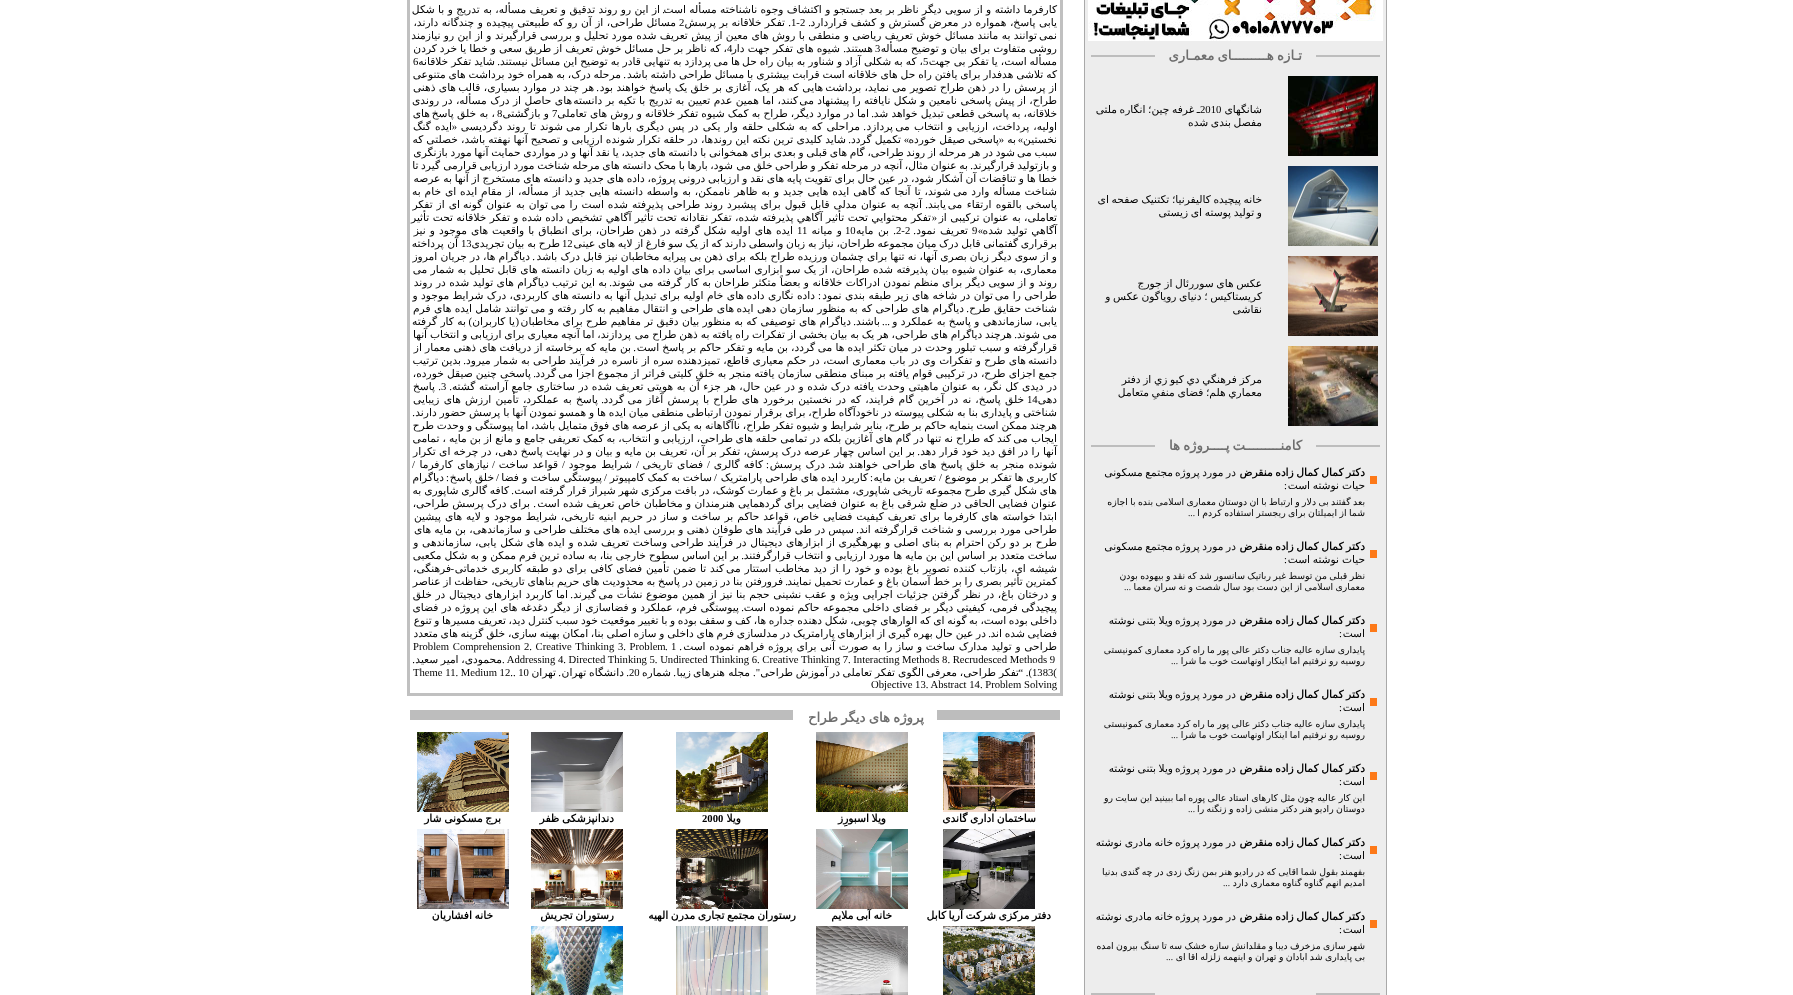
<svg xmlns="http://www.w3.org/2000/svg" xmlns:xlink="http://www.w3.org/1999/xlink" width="1793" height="995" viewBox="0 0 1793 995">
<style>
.cls-1{font:bold 13.25px DejaVu Sans;direction:rtl;fill:#6e6e6e}
.cls-2{font:10.67px DejaVu Sans;direction:rtl;fill:#000000}
.cls-3{font:10.67px Liberation Serif;fill:#000000}
.cls-4{font:bold 10.67px DejaVu Sans;direction:rtl;fill:#000000}
.cls-5{font:10.67px Liberation Serif;direction:rtl;fill:#000000}
.cls-6{font:9.3px DejaVu Sans;direction:rtl;fill:#000000}
.cls-7{font:9.3px Liberation Serif;direction:rtl;fill:#000000}
.cls-8{font:9.3px Liberation Serif;fill:#000000}
.cls-9{font:bold 10.67px Liberation Serif;fill:#000000}
</style>
<rect width="100%" height="100%" fill="#ffffff"/>
<rect fill="#ededed" stroke="#a9a9a9" x="1084.5" y="-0.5" width="302" height="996"/>
<image xlink:href="image0.png" x="1088" y="0" width="295" height="41"/>
<rect fill="#bdbdbd" x="1316" y="55" width="64" height="2"/>
<rect fill="#bdbdbd" x="1091" y="55" width="64" height="2"/>
<image xlink:href="image1.png" x="1288" y="76" width="90" height="80"/>
<image xlink:href="image2.png" x="1288" y="166" width="90" height="80"/>
<image xlink:href="image3.png" x="1288" y="256" width="90" height="80"/>
<image xlink:href="image4.png" x="1288" y="346" width="90" height="80"/>
<rect fill="#bdbdbd" x="1316" y="445" width="64" height="2"/>
<rect fill="#bdbdbd" x="1091" y="445" width="64" height="2"/>
<rect fill="#fd7918" x="1370" y="476" width="7" height="8"/>
<rect fill="#fd7918" x="1370" y="550" width="7" height="8"/>
<rect fill="#fd7918" x="1370" y="624" width="7" height="8"/>
<rect fill="#fd7918" x="1370" y="698" width="7" height="8"/>
<rect fill="#fd7918" x="1370" y="772" width="7" height="8"/>
<rect fill="#fd7918" x="1370" y="846" width="7" height="8"/>
<rect fill="#fd7918" x="1370" y="920" width="7" height="8"/>
<rect fill="#bdbdbd" x="1316" y="993" width="64" height="2"/>
<rect fill="#bdbdbd" x="1091" y="993" width="64" height="2"/>
<rect fill="none" stroke="#c0c0c0" stroke-width="3" x="408.5" y="-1.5" width="653" height="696"/>
<rect fill="#bdbdbd" x="937" y="710" width="123" height="10"/>
<rect fill="#bdbdbd" x="410" y="710" width="383" height="10"/>
<image xlink:href="image5.png" x="943" y="732" width="92" height="80"/>
<image xlink:href="image6.png" x="816" y="732" width="92" height="80"/>
<image xlink:href="image7.png" x="676" y="732" width="92" height="80"/>
<image xlink:href="image8.png" x="531" y="732" width="92" height="80"/>
<image xlink:href="image9.png" x="417" y="732" width="92" height="80"/>
<image xlink:href="image10.png" x="943" y="829" width="92" height="80"/>
<image xlink:href="image11.png" x="816" y="829" width="92" height="80"/>
<image xlink:href="image12.png" x="676" y="829" width="92" height="80"/>
<image xlink:href="image13.png" x="531" y="829" width="92" height="80"/>
<image xlink:href="image14.png" x="417" y="829" width="92" height="80"/>
<image xlink:href="image15.png" x="943" y="926" width="92" height="69"/>
<image xlink:href="image16.png" x="816" y="926" width="92" height="69"/>
<image xlink:href="image17.png" x="676" y="926" width="92" height="69"/>
<image xlink:href="image18.png" x="531" y="926" width="92" height="69"/>
<text class="cls-1" x="1302" y="60" word-spacing="-1">تـازه هـــــــــای معمـاری</text>
<text class="cls-2" x="1262" y="113">شانگهای</text>
<text class="cls-2" x="1200" y="113" word-spacing="-0.75">ـ غرفه چین؛ انگاره ملتی</text>
<text class="cls-3" x="1200" y="113">2010</text>
<text class="cls-2" x="1262" y="126" word-spacing="-0.75">مفصل بندی شده</text>
<text class="cls-2"><tspan x="1262" y="203" word-spacing="-0.75">خانه پیچیده کالیفرنیا؛ تکتنیک صفحه ای</tspan><tspan x="1262" y="216" word-spacing="-0.75">و تولید پوسته ای زیستی</tspan></text>
<text class="cls-2"><tspan x="1262" y="287" word-spacing="-0.75">عکس های سوررئال از جورج</tspan><tspan x="1262" y="300" word-spacing="-0.75">کریستاکیس ؛ دنیای رویاگون عکس و</tspan><tspan x="1262" y="313">نقاشی</tspan></text>
<text class="cls-2"><tspan x="1262" y="383" word-spacing="-0.75">مركز فرهنگي دي كيو زي از دفتر</tspan><tspan x="1262" y="396" word-spacing="-0.75">معماري هلم؛ فضای منفیِ متعامل</tspan></text>
<text class="cls-1" x="1302" y="450" word-spacing="-1">کامنـــــــــت پــــروژه ها</text>
<text class="cls-4" x="1365" y="476" word-spacing="-0.75">دکتر کمال کمال زاده منقرض</text>
<text class="cls-2" x="1236" y="476" word-spacing="-0.75">در مورد پروژه</text>
<text class="cls-2" x="1173" y="476" word-spacing="-0.75">مجتمع مسکونی</text>
<text class="cls-2" x="1365" y="489">حیات</text>
<text class="cls-2" x="1339" y="489" word-spacing="-0.75">نوشته است</text>
<text class="cls-5" x="1287" y="489">:</text>
<text class="cls-6"><tspan x="1365" y="505" word-spacing="-0.6">بعد گفتند بی دلار و ارتباط با ان دوستان معماری اسلامی بنده با اجازه</tspan><tspan x="1365" y="516" word-spacing="-0.5">شما از ایمیلتان برای ریجستر استفاده کردم ا</tspan></text>
<text class="cls-7" x="1195" y="516">...</text>
<text class="cls-4" x="1365" y="550" word-spacing="-0.75">دکتر کمال کمال زاده منقرض</text>
<text class="cls-2" x="1236" y="550" word-spacing="-0.75">در مورد پروژه</text>
<text class="cls-2" x="1173" y="550" word-spacing="-0.75">مجتمع مسکونی</text>
<text class="cls-2" x="1365" y="563">حیات</text>
<text class="cls-2" x="1339" y="563" word-spacing="-0.75">نوشته است</text>
<text class="cls-5" x="1287" y="563">:</text>
<text class="cls-6"><tspan x="1365" y="579" word-spacing="-0.6">نظر قبلی من توسط غیر رباتیک سانسور شد که نقد و بیهوده بودن</tspan><tspan x="1365" y="590" word-spacing="-0.5">معماری اسلامی از این دست بود سال شصت و نه سران معما</tspan></text>
<text class="cls-7" x="1131" y="590">...</text>
<text class="cls-4" x="1365" y="624" word-spacing="-0.75">دکتر کمال کمال زاده منقرض</text>
<text class="cls-2" x="1236" y="624" word-spacing="-0.75">در مورد پروژه</text>
<text class="cls-2" x="1173" y="624" word-spacing="-0.75">ویلا بتنی</text>
<text class="cls-2" x="1135" y="624">نوشته</text>
<text class="cls-2" x="1365" y="637">است</text>
<text class="cls-5" x="1342" y="637">:</text>
<text class="cls-6"><tspan x="1365" y="653" word-spacing="-0.6">پایداری سازه عالیه جناب دکتر عالی پور ما راه کرد معماری کمونیستی</tspan><tspan x="1365" y="664" word-spacing="-0.5">روسیه رو نرفتیم اما اینکار اونهاست خوب ما شرا</tspan></text>
<text class="cls-7" x="1178" y="664">...</text>
<text class="cls-4" x="1365" y="698" word-spacing="-0.75">دکتر کمال کمال زاده منقرض</text>
<text class="cls-2" x="1236" y="698" word-spacing="-0.75">در مورد پروژه</text>
<text class="cls-2" x="1173" y="698" word-spacing="-0.75">ویلا بتنی</text>
<text class="cls-2" x="1135" y="698">نوشته</text>
<text class="cls-2" x="1365" y="711">است</text>
<text class="cls-5" x="1342" y="711">:</text>
<text class="cls-6"><tspan x="1365" y="727" word-spacing="-0.6">پایداری سازه عالیه جناب دکتر عالی پور ما راه کرد معماری کمونیستی</tspan><tspan x="1365" y="738" word-spacing="-0.5">روسیه رو نرفتیم اما اینکار اونهاست خوب ما شرا</tspan></text>
<text class="cls-7" x="1178" y="738">...</text>
<text class="cls-4" x="1365" y="772" word-spacing="-0.75">دکتر کمال کمال زاده منقرض</text>
<text class="cls-2" x="1236" y="772" word-spacing="-0.75">در مورد پروژه</text>
<text class="cls-2" x="1173" y="772" word-spacing="-0.75">ویلا بتنی</text>
<text class="cls-2" x="1135" y="772">نوشته</text>
<text class="cls-2" x="1365" y="785">است</text>
<text class="cls-5" x="1342" y="785">:</text>
<text class="cls-6"><tspan x="1365" y="801" word-spacing="-0.6">این کار عالیه چون مثل کارهای استاد عالی پوره اما ببینید این سایت رو</tspan><tspan x="1365" y="812" word-spacing="-0.5">دوستان رادیو هنر دکتر منشی زاده و زنگنه را</tspan></text>
<text class="cls-7" x="1195" y="812">...</text>
<text class="cls-4" x="1365" y="846" word-spacing="-0.75">دکتر کمال کمال زاده منقرض</text>
<text class="cls-2" x="1236" y="846" word-spacing="-0.75">در مورد پروژه</text>
<text class="cls-2" x="1173" y="846" word-spacing="-0.75">خانه مادری</text>
<text class="cls-2" x="1122" y="846">نوشته</text>
<text class="cls-2" x="1365" y="859">است</text>
<text class="cls-5" x="1342" y="859">:</text>
<text class="cls-6"><tspan x="1365" y="875" word-spacing="-0.6">بفهمند بقول شما اقایی که در رادیو هنر بمن زنگ زدی در چه گندی بدنیا</tspan><tspan x="1365" y="886" word-spacing="-0.6">امدیم انهم گناوه گناوه معماری دارد</tspan></text>
<text class="cls-8" x="1223" y="886">...</text>
<text class="cls-4" x="1365" y="920" word-spacing="-0.75">دکتر کمال کمال زاده منقرض</text>
<text class="cls-2" x="1236" y="920" word-spacing="-0.75">در مورد پروژه</text>
<text class="cls-2" x="1173" y="920" word-spacing="-0.75">خانه مادری</text>
<text class="cls-2" x="1122" y="920">نوشته</text>
<text class="cls-2" x="1365" y="933">است</text>
<text class="cls-5" x="1342" y="933">:</text>
<text class="cls-6"><tspan x="1365" y="949" word-spacing="-0.6">شهر سازی مزخرف دیبا و مقلدانش سازه خشک سه تا سنگ بیرون امده</tspan><tspan x="1365" y="960" word-spacing="-0.5">بی پایداری شد ابادان و تهران و اینهمه زلزله اقا ای</tspan></text>
<text class="cls-7" x="1173" y="960">...</text>
<text class="cls-2" x="1057" y="13">کارفرما داشته و از سویی دیگر ناظر بر بعد جستجو و اکتشاف وجوه ناشناخته مسأله است</text>
<text class="cls-5" x="665" y="13">.</text>
<text class="cls-2" x="660" y="13">از این رو روند تدقیق و تعریف مسأله، به تدریج و با شکل</text>
<text class="cls-2" x="1057" y="26" word-spacing="0.15">یابی پاسخ، همواره در معرض گسترش و کشف قراردارد</text>
<text class="cls-5" x="811" y="26">.</text>
<text class="cls-3" x="791" y="26">1-2</text>
<text class="cls-5" x="791" y="26">.</text>
<text class="cls-2" x="785" y="26">تفکر خلاقانه بر پرسش</text>
<text class="cls-3" x="679" y="26">2</text>
<text class="cls-2" x="676" y="26" word-spacing="0.1">مسائل طراحی، از آن رو که طبیعتی پیچیده و چندگانه دارند،</text>
<text class="cls-2" x="1057" y="39">نمی</text>
<text class="cls-2" x="1037" y="39">توانند به مانند مسائل خوش تعریف ریاضی و منطقی با روش های معین از پیش تعریف شده مورد تحلیل و بررسی قرارگیرند و از این رو نیازمند</text>
<text class="cls-2" x="1057" y="52" word-spacing="-0.4">روشی متفاوت برای بیان و توضیح مسأله</text>
<text class="cls-3" x="875" y="52">3</text>
<text class="cls-2" x="873" y="52">هستند</text>
<text class="cls-5" x="846" y="52">.</text>
<text class="cls-3" x="727" y="52">4</text>
<text class="cls-2" x="840" y="52" word-spacing="-0.15">شیوه های تفکر جهت دار</text>
<text class="cls-2" x="727" y="52" word-spacing="-0.4">، که ناظر بر حل مسائل خوش تعریف از طریق سعی و خطا یا خرد کردن</text>
<text class="cls-2" x="1057" y="65" word-spacing="-0.4">مسأله است، یا تفکر بی جهت</text>
<text class="cls-3" x="923" y="65">5</text>
<text class="cls-2" x="923" y="65" word-spacing="-0.4">، که به شکلی آزاد و شناور به بیان راه حل</text>
<text class="cls-2" x="740" y="65" word-spacing="-0.4">ها می</text>
<text class="cls-2" x="711" y="65" word-spacing="-0.4">پردازد به تنهایی قادر به توضیح این مسائل نیستند</text>
<text class="cls-5" x="500" y="65">.</text>
<text class="cls-2" x="495" y="65" word-spacing="-0.4">شاید تفکر خلاقانه</text>
<text class="cls-3" x="413" y="65">6</text>
<text class="cls-2" x="1057" y="78" word-spacing="-0.5">که تلاشی هدفدار برای یافتن راه حل های خلاقانه است قرابت بیشتری با مسائل طراحی داشته باشد</text>
<text class="cls-5" x="626" y="78">.</text>
<text class="cls-2" x="621" y="78" word-spacing="-0.5">مرحله درک، به همراه خود برداشت های متنوعی</text>
<text class="cls-2" x="1057" y="91">از پرسش را در ذهن طراح تصویر می</text>
<text class="cls-2" x="889" y="91">نماید، برداشت</text>
<text class="cls-2" x="823" y="91">هایی که هر یک، آغازی بر خلق یک پاسخ خواهند بود</text>
<text class="cls-5" x="599" y="91">.</text>
<text class="cls-2" x="594" y="91">هر چند در موارد بسیاری، قالب</text>
<text class="cls-2" x="456" y="91">های ذهنی</text>
<text class="cls-2" x="1057" y="104">طراح، از پیش پاسخی نامعین و شکل نایافته را پیشنهاد می</text>
<text class="cls-2" x="798" y="104">کنند، اما همین عدم تعیین به تدریج با تکیه بر دانسته</text>
<text class="cls-2" x="572" y="104">های حاصل از درک مسأله، در روندی</text>
<text class="cls-2" x="1057" y="117" word-spacing="-0.25">خلاقانه، به پاسخی قطعی تبدیل خواهد شد</text>
<text class="cls-5" x="874" y="117">.</text>
<text class="cls-2" x="869" y="117" word-spacing="-0.25">اما در موارد دیگر، طراح به کمک شیوه تفکر خلاقانه و روش های تعاملی</text>
<text class="cls-3" x="552" y="117">7</text>
<text class="cls-2" x="549" y="117">و بازگشتی</text>
<text class="cls-3" x="497" y="117">8</text>
<text class="cls-2" x="495" y="117">، به خلق پاسخ</text>
<text class="cls-2" x="430" y="117">های</text>
<text class="cls-2" x="1057" y="130" word-spacing="0.75">اولیه، پرداخت، ارزیابی و انتخاب می</text>
<text class="cls-2" x="893" y="130">پردازد</text>
<text class="cls-5" x="866" y="130">.</text>
<text class="cls-2" x="860" y="130" word-spacing="0.75">مراحلی که به شکلی حلقه وار یکی در پس دیگری بارها تکرار می</text>
<text class="cls-2" x="563" y="130" word-spacing="0.75">شوند تا روند دگردیسی</text>
<text class="cls-5" x="457" y="130">«</text>
<text class="cls-2" x="452" y="130" word-spacing="0.75">ایده گنگ</text>
<text class="cls-2" x="1057" y="143">نخستین</text>
<text class="cls-5" x="1023" y="143">»</text>
<text class="cls-2" x="1016" y="143">به</text>
<text class="cls-5" x="1004" y="143">«</text>
<text class="cls-2" x="999" y="143" word-spacing="-0.25">پاسخی صیقل خورده</text>
<text class="cls-5" x="909" y="143">»</text>
<text class="cls-2" x="901" y="143" word-spacing="-0.25">تکمیل گردد</text>
<text class="cls-5" x="851" y="143">.</text>
<text class="cls-2" x="846" y="143" word-spacing="-0.25">شاید کلیدی ترین نکته این روندها، در حلقه تکرار شونده ارزیابی و تصحیح آنها نهفته باشد، خصلتی که</text>
<text class="cls-2" x="1057" y="156" word-spacing="-0.65">سبب می</text>
<text class="cls-2" x="1015" y="156" word-spacing="-0.65">شود در هر مرحله از روند طراحی، گام های قبلی و بعدی برای همخوانی با دانسته های جدید، یا نقد آنها و در مواردی حمایت آنها مورد بازنگری</text>
<text class="cls-2" x="1057" y="169" word-spacing="-0.75">و بازتولید قرارگیرند</text>
<text class="cls-5" x="973" y="169">.</text>
<text class="cls-2" x="968" y="169" word-spacing="-0.75">به عنوان مثال، آنچه در مرحله تفکر و طراحی خلق می</text>
<text class="cls-2" x="733" y="169" word-spacing="-0.75">شود، بارها با محک دانسته های مرحله شناخت مورد ارزیابی قرارمی</text>
<text class="cls-2" x="440" y="169" word-spacing="-0.75">گیرد تا</text>
<text class="cls-2"><tspan x="1057" y="182" word-spacing="-0.6">خطا ها و تناقضات آن آشکار شود، در عین حال برای تقویت پایه های نقد و ارزیابی درونی پروژه، داده های جدید و دانسته های مستخرج از آنها به عرصه</tspan><tspan x="1057" y="195" word-spacing="0.5">شناخت مسأله وارد می</tspan></text>
<text class="cls-2" x="951" y="195" word-spacing="0.5">شوند، تا آنجا که گاهی ایده هایی جدید و به ظاهر ناممکن، به واسطه دانسته هایی جدید از مسأله، از مقام ایده ای خام به</text>
<text class="cls-2" x="1057" y="208" word-spacing="1">پاسخی بالقوه ارتقاء می</text>
<text class="cls-2" x="946" y="208">یابند</text>
<text class="cls-5" x="928" y="208">.</text>
<text class="cls-2" x="922" y="208" word-spacing="0.6">آنچه به عنوان مدلی قابل قبول برای پیشبرد روند طراحی پذیرفته شده است را می</text>
<text class="cls-2" x="548" y="208" word-spacing="0.6">توان به عنوان گونه</text>
<text class="cls-2" x="460" y="208" word-spacing="0.6">ای از تفکر</text>
<text class="cls-2" x="1057" y="221">تعاملی، به عنوان ترکیبی از</text>
<text class="cls-2" x="931" y="221">تفکر محتوايي تحت تأثير آگاهي پذيرفته شده، تفکر نقادانه تحت تأثير آگاهي تشخيص داده شده و تفکر خلاقانه تحت تأثير</text>
<text class="cls-5" x="937" y="221">«</text>
<text class="cls-2" x="1057" y="234" word-spacing="0.6">آگاهي توليد شده</text>
<text class="cls-5" x="983" y="234">»</text>
<text class="cls-3" x="972" y="234">9</text>
<text class="cls-2" x="968" y="234" word-spacing="1">تعریف نمود</text>
<text class="cls-5" x="916" y="234">.</text>
<text class="cls-3" x="896" y="234">2-2</text>
<text class="cls-5" x="896" y="234">.</text>
<text class="cls-2" x="889" y="234" word-spacing="1">بن مایه</text>
<text class="cls-3" x="845" y="234">10</text>
<text class="cls-2" x="842" y="234" word-spacing="1">و میانه</text>
<text class="cls-3" x="797" y="234">11</text>
<text class="cls-2" x="793" y="234" word-spacing="0.6">ایده های اولیه شکل گرفته در ذهن طراحان، برای انطباق با واقعیت های موجود و نیز</text>
<text class="cls-2" x="1057" y="247" word-spacing="-0.75">برقراری گفتمانی قابل درک میان مجموعه طراحان، نیاز به زبان واسطی دارند که از یک سو فارغ از لایه های عینی</text>
<text class="cls-3" x="562" y="247">12</text>
<text class="cls-2" x="560" y="247" word-spacing="-0.5">طرح به بیان تجریدی</text>
<text class="cls-3" x="461" y="247">13</text>
<text class="cls-2" x="458" y="247">آن پرداخته</text>
<text class="cls-2" x="1057" y="260" word-spacing="-0.25">و از سوی دیگر زبان بصری آنها، نه تنها برای چشمان ورزیده طراح بلکه برای ذهن بی پیرایه مخاطبان نیز قابل درک باشد</text>
<text class="cls-5" x="535" y="260">.</text>
<text class="cls-2" x="530" y="260" word-spacing="-0.25">دیاگرام ها، در جریان امروز</text>
<text class="cls-2"><tspan x="1057" y="273">معماری، به عنوان شیوه بیان پذیرفته شده طراحان، از یک سو ابزاری اساسی برای بیان داده های اولیه به زبان دانسته های قابل تحلیل به شمار می</tspan><tspan x="1057" y="286">روند و از سویی دیگر برای منظم نمودن ادراکات خلاقانه و بعضاً متکثر طراحان به کار گرفته می</tspan></text>
<text class="cls-2" x="635" y="286">شوند</text>
<text class="cls-5" x="612" y="286">.</text>
<text class="cls-2" x="607" y="286">به این ترتیب دیاگرام های تولید شده در روند</text>
<text class="cls-2" x="1057" y="299">طراحی را می</text>
<text class="cls-2" x="993" y="299">توان در شاخه های زیر طبقه بندی نمود</text>
<text class="cls-5" x="821" y="299">:</text>
<text class="cls-2" x="815" y="299">داده نگاری داده</text>
<text class="cls-2" x="744" y="299">های خام اولیه برای تبدیل آنها به دانسته</text>
<text class="cls-2" x="569" y="299">های کاربردی، درک شرایط موجود و</text>
<text class="cls-2" x="1057" y="312" word-spacing="0.1">شناخت حقایق طرح</text>
<text class="cls-5" x="969" y="312">.</text>
<text class="cls-2" x="964" y="312" word-spacing="0.1">دیاگرام های طراحی که به منظور سازمان دهی ایده</text>
<text class="cls-2" x="734" y="312" word-spacing="0.1">های طراحی و انتقال مفاهیم به کار رفته و می</text>
<text class="cls-2" x="528" y="312" word-spacing="0.1">توانند شامل ایده های فرم</text>
<text class="cls-2" x="1057" y="325">یابی، سازماندهی و پاسخ به عملکرد و</text>
<text class="cls-5" x="890" y="325">...</text>
<text class="cls-2" x="880" y="325">باشند</text>
<text class="cls-5" x="856" y="325">.</text>
<text class="cls-2" x="851" y="325">دیاگرام های توصیفی که به منظور بیان دقیق تر مفاهیم طرح برای مخاطبان</text>
<text class="cls-5" x="519" y="325">(</text>
<text class="cls-2" x="515" y="325">یا کاربران</text>
<text class="cls-5" x="472" y="325">)</text>
<text class="cls-2" x="466" y="325">به کار گرفته</text>
<text class="cls-2" x="1057" y="338">می</text>
<text class="cls-2" x="1040" y="338">شوند</text>
<text class="cls-5" x="1017" y="338">.</text>
<text class="cls-2" x="1012" y="338" word-spacing="-0.5">هرچند دیاگرام های طراحی، هر یک به بیان بخشی از تفکرات راه یافته به ذهن طراح می</text>
<text class="cls-2" x="631" y="338" word-spacing="-0.5">پردازند، اما آنچه معیاری برای ارزیابی و انتخاب آنها</text>
<text class="cls-2" x="1057" y="351" word-spacing="-0.25">قرارگرفته و سبب تبلور وحدت در میان تکثر ایده ها می</text>
<text class="cls-2" x="815" y="351" word-spacing="-0.25">گردد، بن مایه و تفکر حاکم بر پاسخ است</text>
<text class="cls-5" x="636" y="351">.</text>
<text class="cls-2" x="631" y="351" word-spacing="-0.25">بن مایه که برخاسته از دریافت های ذهنی معمار از</text>
<text class="cls-2" x="1057" y="364">دانسته</text>
<text class="cls-2" x="1026" y="364">های طرح و تفکرات وی در باب معماری است، در حکم معیاری قاطع، تمیزدهنده سره از ناسره در فرآیند طراحی به شمار میرود</text>
<text class="cls-5" x="466" y="364">.</text>
<text class="cls-2" x="461" y="364">بدین ترتیب</text>
<text class="cls-2" x="1057" y="377" word-spacing="-0.25">جمع اجزای طرح، در ترکیبی قوام یافته بر مبنای منطقی سازمان یافته منجر به خلق کلیتی فراتر از مجموع اجزا می</text>
<text class="cls-2" x="556" y="377">گردد</text>
<text class="cls-5" x="536" y="377">.</text>
<text class="cls-2" x="531" y="377" word-spacing="-0.25">پاسخی چنین صیقل خورده،</text>
<text class="cls-2" x="1057" y="390" word-spacing="0.15">در دیدی کل نگر، به عنوان ماهیتی وحدت یافته درک شده و در عین حال، هر جزء آن به هویتی تعریف شده در ساختاری جامع آراسته گشته</text>
<text class="cls-5" x="452" y="390">.</text>
<text class="cls-3" x="441" y="390">3</text>
<text class="cls-5" x="441" y="390">.</text>
<text class="cls-2" x="435" y="390">پاسخ</text>
<text class="cls-2" x="1057" y="403">دهی</text>
<text class="cls-3" x="1027" y="403">14</text>
<text class="cls-2" x="1024" y="403" word-spacing="0.8">خلق پاسخ، نه در آخرین گام فرایند، که در نخستین برخورد های طراح با پرسش آغاز می</text>
<text class="cls-2" x="624" y="403">گردد</text>
<text class="cls-5" x="604" y="403">.</text>
<text class="cls-2" x="598" y="403" word-spacing="0.8">پاسخ به عملکرد، تأمین ارزش های زیبایی</text>
<text class="cls-2" x="1057" y="416" word-spacing="-0.5">شناختی و پایداری بنا به شکلی پیوسته در ناخودآگاه طراح، برای برقرار نمودن ارتباطی منطقی میان ایده ها و همسو نمودن آنها با پرسش حضور دارند</text>
<text class="cls-5" x="415" y="416">.</text>
<text class="cls-2"><tspan x="1057" y="429" word-spacing="-0.55">هرچند ممکن است بنمایه حاکم بر طرح، بنابر شرایط و شیوه تفکر طراح، ناآگاهانه به یکی از عرصه های فوق متمایل باشد، اما پیوستگی و وحدت طرح</tspan><tspan x="1057" y="442" word-spacing="-0.3">ایجاب می</tspan></text>
<text class="cls-2" x="1011" y="442" word-spacing="-0.3">کند که طراح نه تنها در گام های آغازین بلکه در تمامی حلقه های</text>
<text class="cls-2" x="733" y="442" word-spacing="-0.3">طراحی، ارزیابی و انتخاب، به کمک تعریفی جامع و مانع از بن مایه ، تمامی</text>
<text class="cls-2" x="1057" y="455" word-spacing="-0.15">آنها را در افق دید خود قرار دهد</text>
<text class="cls-5" x="920" y="455">.</text>
<text class="cls-2" x="915" y="455" word-spacing="-0.15">بر این اساس چهار عرصه درک پرسش، تفکر بر آن، تعریف بن مایه و بیان و در نهایت پاسخ دهی، در چرخه ای تکرار</text>
<text class="cls-2" x="1057" y="468" word-spacing="0.75">شونده منجر به خلق پاسخ های طراحی خواهند شد</text>
<text class="cls-5" x="831" y="468">.</text>
<text class="cls-2" x="825" y="468" word-spacing="1">درک پرسش</text>
<text class="cls-5" x="769" y="468">:</text>
<text class="cls-2" x="763" y="468" word-spacing="1">کافه گالری</text>
<text class="cls-5" x="710" y="468">/</text>
<text class="cls-2" x="703" y="468" word-spacing="1">فضای تاریخی</text>
<text class="cls-5" x="639" y="468">/</text>
<text class="cls-2" x="632" y="468" word-spacing="1">شرایط موجود</text>
<text class="cls-5" x="565" y="468">/</text>
<text class="cls-2" x="558" y="468" word-spacing="1">قواعد ساخت</text>
<text class="cls-5" x="495" y="468">/</text>
<text class="cls-2" x="489" y="468" word-spacing="1">نیازهای کارفرما</text>
<text class="cls-5" x="415" y="468">/</text>
<text class="cls-2" x="1057" y="481" word-spacing="-0.5">کاربری ها تفکر بر موضوع</text>
<text class="cls-5" x="942" y="481">/</text>
<text class="cls-2" x="936" y="481" word-spacing="-0.5">تعریف بن مایه</text>
<text class="cls-5" x="873" y="481">:</text>
<text class="cls-2" x="868" y="481" word-spacing="-0.5">کاربرد ایده های طراحی پارامتریک</text>
<text class="cls-5" x="717" y="481">/</text>
<text class="cls-2" x="712" y="481" word-spacing="-0.5">ساخت به کمک کامپیوتر</text>
<text class="cls-5" x="607" y="481">/</text>
<text class="cls-2" x="602" y="481">پیوستگی ساخت و فضا</text>
<text class="cls-5" x="499" y="481">/</text>
<text class="cls-2" x="494" y="481" word-spacing="-0.25">خلق پاسخ</text>
<text class="cls-5" x="449" y="481">:</text>
<text class="cls-2" x="444" y="481">دیاگرام</text>
<text class="cls-2" x="1057" y="494" word-spacing="-0.5">های شکل گیری طرح</text>
<text class="cls-2" x="962" y="494" word-spacing="-0.5">مجموعه تاریخی شاپوری، مشتمل بر باغ و عمارت کوشک، در بافت مرکزی شهر شیراز قرار گرفته است</text>
<text class="cls-5" x="514" y="494">.</text>
<text class="cls-2" x="509" y="494" word-spacing="-0.5">کافه گالری شاپوری به</text>
<text class="cls-2" x="1057" y="507">عنوان فضایی الحاقی در ضلع شرقی باغ به عنوان فضایی برای گردهمایی هنرمندان و مخاطبان خاص تعریف شده است</text>
<text class="cls-5" x="536" y="507">.</text>
<text class="cls-2" x="530" y="507">برای درک پرسش طراحی،</text>
<text class="cls-2"><tspan x="1057" y="520" word-spacing="0.6">ابتدا خواسته های کارفرما برای تعریف کیفیت فضایی خاص، قواعد حاکم بر ساخت و ساز در حریم ابنیه تاریخی، شرایط موجود و لایه های پیشین</tspan><tspan x="1057" y="533" word-spacing="-0.25">طراحی مورد بررسی و شناخت قرارگرفته اند</tspan></text>
<text class="cls-5" x="859" y="533">.</text>
<text class="cls-2" x="854" y="533" word-spacing="-0.25">سپس در طی فرآیند های طوفان ذهنی و بررسی ایده های مختلف طراحی و سازماندهی، بن مایه های</text>
<text class="cls-2"><tspan x="1057" y="546" word-spacing="0.3">طرح بر دو رکن احترام به بنای اصلی و بهرهگیری از ابزارهای دیجیتال در فرآیند طراحی وساخت تعریف شده و ایده های شکل یابی، سازماندهی و</tspan><tspan x="1057" y="559" word-spacing="-0.3">ساخت متعدد بر اساس این بن مایه ها مورد ارزیابی و انتخاب قرارگرفتند</tspan></text>
<text class="cls-5" x="744" y="559">.</text>
<text class="cls-2" x="739" y="559" word-spacing="-0.4">بر این اساس سطوح خارجی بنا، به ساده ترین فرم ممکن و به شکل مکعبی</text>
<text class="cls-2" x="1057" y="572" word-spacing="0.4">شیشه ای، بازتاب کننده تصویر باغ بوده و خود را از دید مخاطب استتار می</text>
<text class="cls-2" x="724" y="572" word-spacing="0.4">کند تا ضمن تأمین فضای کافی برای دو طبقه کاربری خدماتی</text>
<text class="cls-5" x="454" y="572">-</text>
<text class="cls-2" x="451" y="572">فرهنگی،</text>
<text class="cls-2" x="1057" y="585" word-spacing="-0.6">کمترین تأثیر بصری را بر خط آسمان باغ و عمارت تحمیل نمایند</text>
<text class="cls-5" x="788" y="585">.</text>
<text class="cls-2" x="783" y="585" word-spacing="-0.6">فرورفتن بنا در زمین در پاسخ به محدودیت های حریم بناهای تاریخی، حفاظت از عناصر</text>
<text class="cls-2" x="1057" y="598" word-spacing="0.25">و درختان باغ، در نظر گرفتن جزئیات اجرایی ویژه و عقب نشینی حجم بنا نیز از همین موضوع نشأت می</text>
<text class="cls-2" x="596" y="598">گیرند</text>
<text class="cls-5" x="573" y="598">.</text>
<text class="cls-2" x="568" y="598" word-spacing="0.25">اما کاربرد ابزارهای دیجیتال در خلق</text>
<text class="cls-2" x="1057" y="611" word-spacing="-0.1">پیچیدگی فرمی، کیفیتی دیگر بر فضای داخلی مجموعه حاکم نموده است</text>
<text class="cls-5" x="744" y="611">.</text>
<text class="cls-2" x="739" y="611" word-spacing="-0.1">پیوستگی فرم، عملکرد و فضاسازی از دیگر دغدغه های این پروژه در فضای</text>
<text class="cls-2"><tspan x="1057" y="624" word-spacing="-0.75">داخلی بوده است، به گونه ای که الوارهای چوبی، شکل دهنده جداره ها، کف و سقف بوده و با تغییر موقعیت خود سبب کنترل دید، تعریف مسیرها و تنوع</tspan><tspan x="1057" y="637" word-spacing="-0.65">فضایی شده اند</tspan></text>
<text class="cls-5" x="991" y="637">.</text>
<text class="cls-2" x="986" y="637" word-spacing="-0.65">در عین حال بهره گیری از ابزارهای پارامتریک در مدلسازی فرم های داخلی و سازه اصلی بنا، امکان بهینه سازی، خلق گزینه های متعدد</text>
<text class="cls-2" x="1057" y="650" word-spacing="0.25">طراحی و تولید مدارک ساخت و ساز را به صورت آنی برای پروژه فراهم نموده است</text>
<text class="cls-5" x="682" y="650">.</text>
<text class="cls-3" x="671" y="650">1</text>
<text class="cls-3" x="665" y="650">.</text>
<text class="cls-3" x="413" y="650" word-spacing="1">Problem Comprehension 2. Creative Thinking 3. Problem</text>
<text class="cls-3" x="502" y="663">. Addressing 4. Directed Thinking 5. Undirected Thinking 6. Creative Thinking 7. Interacting Methods 8. Recrudesced Methods 9</text>
<text class="cls-2" x="502" y="663" word-spacing="-0.75">محمودی، امیر سعید</text>
<text class="cls-5" x="415" y="663">.</text>
<text class="cls-3" x="1032" y="676">1383(</text>
<text class="cls-5" x="1032" y="676">). “</text>
<text class="cls-2" x="1019" y="676">تفکر</text>
<text class="cls-2" x="996" y="676">طراحی،</text>
<text class="cls-2" x="957" y="676">معرفی</text>
<text class="cls-2" x="924" y="676">الگوی</text>
<text class="cls-2" x="895" y="676">تفکر</text>
<text class="cls-2" x="872" y="676">تعاملی</text>
<text class="cls-2" x="840" y="676">در</text>
<text class="cls-2" x="828" y="676">آموزش</text>
<text class="cls-2" x="793" y="676">طراحی</text>
<text class="cls-5" x="760" y="676">".</text>
<text class="cls-2" x="750" y="676">مجله</text>
<text class="cls-2" x="725" y="676">هنرهای</text>
<text class="cls-2" x="691" y="676">زیبا</text>
<text class="cls-5" x="676" y="676">.</text>
<text class="cls-2" x="671" y="676">شماره</text>
<text class="cls-3" x="629" y="676">20</text>
<text class="cls-5" x="629" y="676">.</text>
<text class="cls-2" x="624" y="676" word-spacing="-0.4">دانشگاه تهران</text>
<text class="cls-5" x="561" y="676">.</text>
<text class="cls-2" x="556" y="676">تهران</text>
<text class="cls-3" x="413" y="676">Theme 11. Medium 12.. 10</text>
<text class="cls-3" x="871" y="688">Objective 13. Abstract 14. Problem Solving</text>
<text class="cls-1" x="924" y="722" word-spacing="-1">پروژه های دیگر طراح</text>
<text class="cls-4" x="1036" y="822" word-spacing="-0.75">ساختمان اداری گاندی</text>
<text class="cls-4" x="886" y="822" word-spacing="-0.75">ویلا اسبورِز</text>
<text class="cls-4" x="741" y="822">ویلا</text>
<text class="cls-9" x="702" y="822">2000</text>
<text class="cls-4" x="614" y="822" word-spacing="-0.75">دندانپزشکی ظفر</text>
<text class="cls-4" x="501" y="822" word-spacing="-0.75">برج مسکونی شار</text>
<text class="cls-4" x="1051" y="919" word-spacing="-0.75">دفتر مرکزی شرکت آریا کابل</text>
<text class="cls-4" x="892" y="919" word-spacing="-0.75">خانه آبی ملایم</text>
<text class="cls-4" x="796" y="919" word-spacing="-0.75">رستوران مجتمع تجاری مدرن الهیه</text>
<text class="cls-4" x="614" y="919" word-spacing="-0.75">رستوران تجریش</text>
<text class="cls-4" x="493" y="919" word-spacing="-0.75">خانه افشاریان</text>
</svg>
